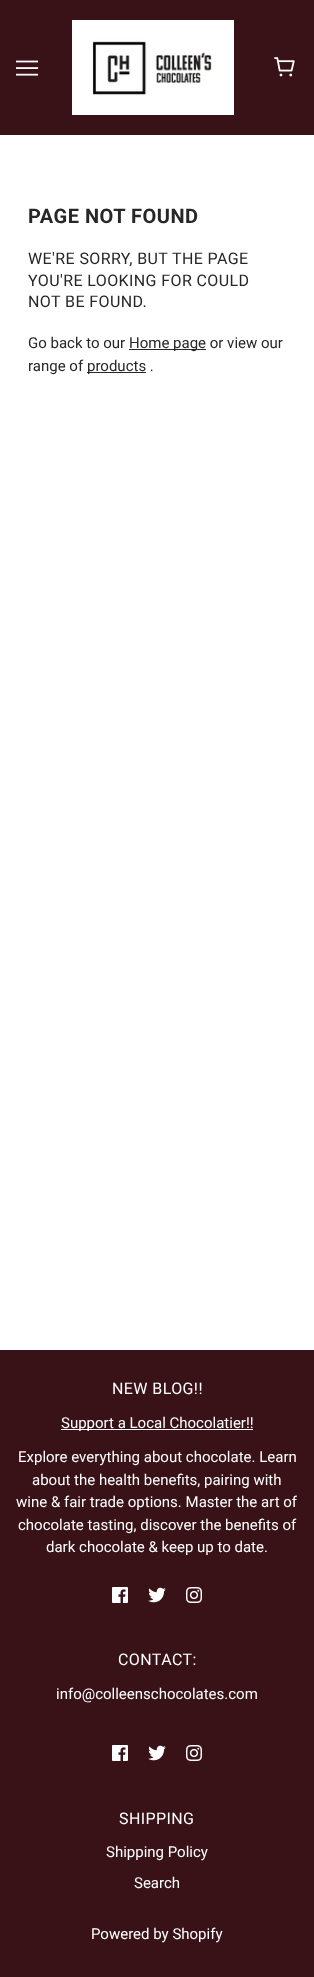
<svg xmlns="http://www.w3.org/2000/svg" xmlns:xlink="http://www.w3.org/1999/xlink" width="314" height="1977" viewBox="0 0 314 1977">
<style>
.cls-1{font:bold 20px Roboto;letter-spacing:0.5px;fill:#272727}
.cls-2{font:16px Roboto;letter-spacing:0.4px;fill:#272727}
.cls-3{font:15px Roboto;fill:#272727}
.cls-4{font:16px Roboto;letter-spacing:0.4px;fill:#ffffff}
.cls-5{font:15px Roboto;fill:#ffffff}
</style>
<rect width="100%" height="100%" fill="#ffffff"/>
<rect fill="#381216" x="0" y="0" width="314" height="135"/>
<image xlink:href="image0.png" x="16" y="60" width="22" height="16"/>
<image xlink:href="image1.png" x="72" y="20" width="162" height="95"/>
<image xlink:href="image2.png" x="274" y="57" width="21" height="20"/>
<rect fill="#272727" x="129" y="349" width="77" height="1"/>
<rect fill="#272727" x="87" y="372" width="59" height="1"/>
<rect fill="#381216" x="0" y="1350" width="314" height="627"/>
<rect fill="#ffffff" x="61" y="1429" width="192" height="1"/>
<image xlink:href="image3.png" x="112" y="1587" width="16" height="16"/>
<image xlink:href="image4.png" x="148" y="1587" width="18" height="16"/>
<image xlink:href="image5.png" x="186" y="1587" width="16" height="16"/>
<image xlink:href="image3.png" x="112" y="1745" width="16" height="16"/>
<image xlink:href="image4.png" x="148" y="1745" width="18" height="16"/>
<image xlink:href="image5.png" x="186" y="1745" width="16" height="16"/>
<text class="cls-1" x="28" y="223">PAGE NOT FOUND</text>
<text class="cls-2"><tspan x="28" y="264">WE'RE SORRY, BUT THE PAGE</tspan><tspan x="28" y="286">YOU'RE LOOKING FOR COULD</tspan><tspan x="28" y="307">NOT BE FOUND.</tspan></text>
<text class="cls-3" x="28" y="348">Go back to our</text>
<text class="cls-3" x="129" y="348">Home page or view our</text>
<text class="cls-3" x="28" y="371">range of</text>
<text class="cls-3" x="87" y="371">products .</text>
<text class="cls-4" x="112" y="1394">NEW BLOG!!</text>
<text class="cls-5" x="61" y="1428">Support a Local Chocolatier!!</text>
<text class="cls-5" x="18" y="1462">Explore everything about chocolate. Learn</text>
<text class="cls-5" x="32" y="1485">about the health benefits, pairing with</text>
<text class="cls-5" x="16" y="1507">wine &amp; fair trade options. Master the art of</text>
<text class="cls-5" x="18" y="1530">chocolate tasting, discover the benefits of</text>
<text class="cls-5" x="46" y="1552">dark chocolate &amp; keep up to date.</text>
<text class="cls-4" x="118" y="1665">CONTACT:</text>
<text class="cls-5" x="56" y="1699">info@colleenschocolates.com</text>
<text class="cls-4" x="119" y="1824">SHIPPING</text>
<text class="cls-5" x="106" y="1857">Shipping Policy</text>
<text class="cls-5" x="134" y="1888">Search</text>
<text class="cls-5" x="91" y="1939">Powered by Shopify</text>
</svg>
